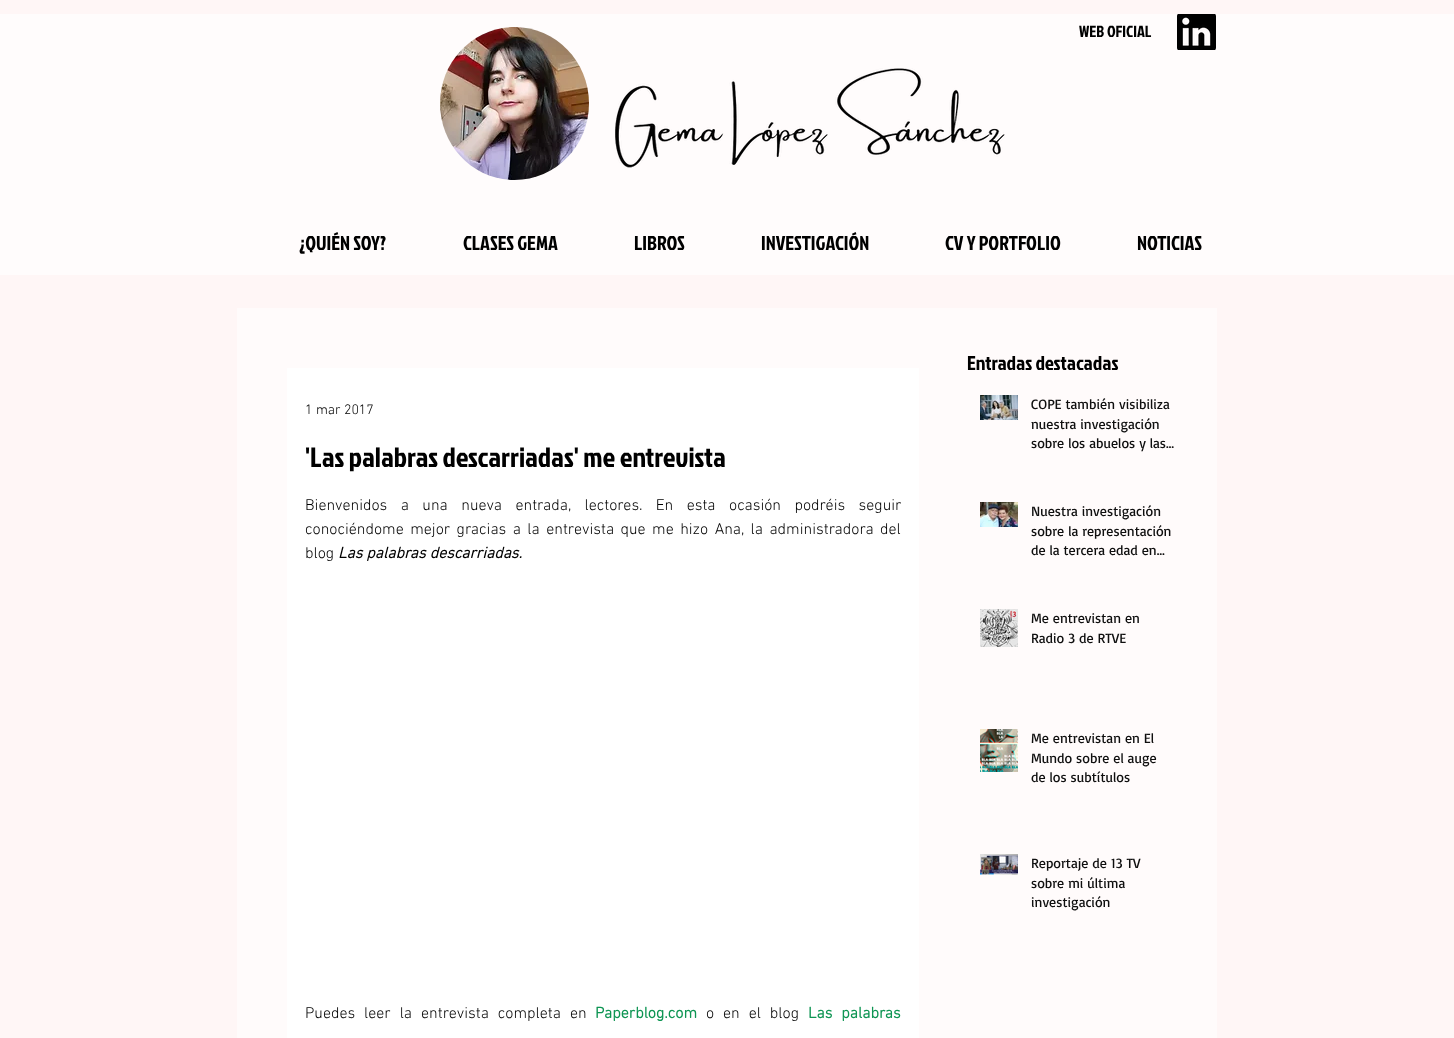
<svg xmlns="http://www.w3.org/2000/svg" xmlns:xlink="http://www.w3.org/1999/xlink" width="1454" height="1038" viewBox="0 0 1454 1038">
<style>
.cls-1{font:16px Jockey One;fill:#000000}
.cls-2{font:20px Jockey One;fill:#000000}
.cls-3{font:300 14px 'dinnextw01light';fill:#000000}
.cls-4{font:28px Jockey One;fill:#000000}
.cls-5{font:300 16px 'dinnextw01light';fill:#000000}
.cls-6{font:italic bold 16px 'dinnextw01light';fill:#000000}
.cls-7{font:bold 16px 'dinnextw01light';fill:#0e9553}
.cls-8{font:14px Basic;fill:#0f0f0f}
</style>
<rect width="100%" height="100%" fill="#fff6f6"/>
<rect fill="#fffcfc" x="0" y="14" width="1454" height="261"/>
<image xlink:href="image0.png" x="440" y="27" width="149" height="153"/>
<image xlink:href="image1.png" x="615" y="68" width="390" height="100"/>
<image xlink:href="image2.png" x="1177" y="14" width="39" height="36"/>
<rect fill="#fffbfb" x="237" y="308" width="980" height="730"/>
<rect fill="#ffffff" x="287" y="368" width="632" height="670"/>
<image xlink:href="image3.png" x="980" y="395" width="38" height="25"/>
<image xlink:href="image4.png" x="980" y="502" width="38" height="25"/>
<image xlink:href="image5.png" x="980" y="609" width="38" height="38"/>
<image xlink:href="image6.png" x="980" y="729" width="38" height="43"/>
<image xlink:href="image7.png" x="980" y="854" width="38" height="21"/>
<text class="cls-1" x="1079" y="37">WEB OFICIAL</text>
<text class="cls-2" x="299" y="250">¿QUIÉN SOY?</text>
<text class="cls-2" x="463" y="250">CLASES GEMA</text>
<text class="cls-2" x="634" y="250">LIBROS</text>
<text class="cls-2" x="761" y="250">INVESTIGACIÓN</text>
<text class="cls-2" x="945" y="250">CV Y PORTFOLIO</text>
<text class="cls-2" x="1137" y="250">NOTICIAS</text>
<text class="cls-2" x="967" y="370">Entradas destacadas</text>
<text class="cls-3" x="305" y="414">1 mar 2017</text>
<text class="cls-4" x="305" y="467">'Las palabras descarriadas' me entrevista</text>
<text class="cls-5"><tspan x="305" y="510" word-spacing="9.5">Bienvenidos a una nueva entrada, lectores. En esta ocasión podréis seguir</tspan><tspan x="305" y="534" word-spacing="2.5">conociéndome mejor gracias a la entrevista que me hizo Ana, la administradora del</tspan><tspan x="305" y="558">blog</tspan></text>
<text class="cls-6" x="338" y="558">Las palabras descarriadas.</text>
<text class="cls-5" x="305" y="1018" word-spacing="5">Puedes leer la entrevista completa en</text>
<text class="cls-7" x="595" y="1018">Paperblog.com</text>
<text class="cls-5" x="706" y="1018" word-spacing="5">o en el blog</text>
<text class="cls-7" x="808" y="1018" word-spacing="5">Las palabras</text>
<text class="cls-8"><tspan x="1031" y="409">COPE también visibiliza</tspan><tspan x="1031" y="429">nuestra investigación</tspan><tspan x="1031" y="448">sobre los abuelos y las…</tspan></text>
<text class="cls-8"><tspan x="1031" y="516">Nuestra investigación</tspan><tspan x="1031" y="536">sobre la representación</tspan><tspan x="1031" y="555">de la tercera edad en…</tspan></text>
<text class="cls-8"><tspan x="1031" y="623">Me entrevistan en</tspan><tspan x="1031" y="643">Radio 3 de RTVE</tspan></text>
<text class="cls-8"><tspan x="1031" y="743">Me entrevistan en El</tspan><tspan x="1031" y="763">Mundo sobre el auge</tspan><tspan x="1031" y="782">de los subtítulos</tspan></text>
<text class="cls-8"><tspan x="1031" y="868">Reportaje de 13 TV</tspan><tspan x="1031" y="888">sobre mi última</tspan><tspan x="1031" y="907">investigación</tspan></text>
</svg>
